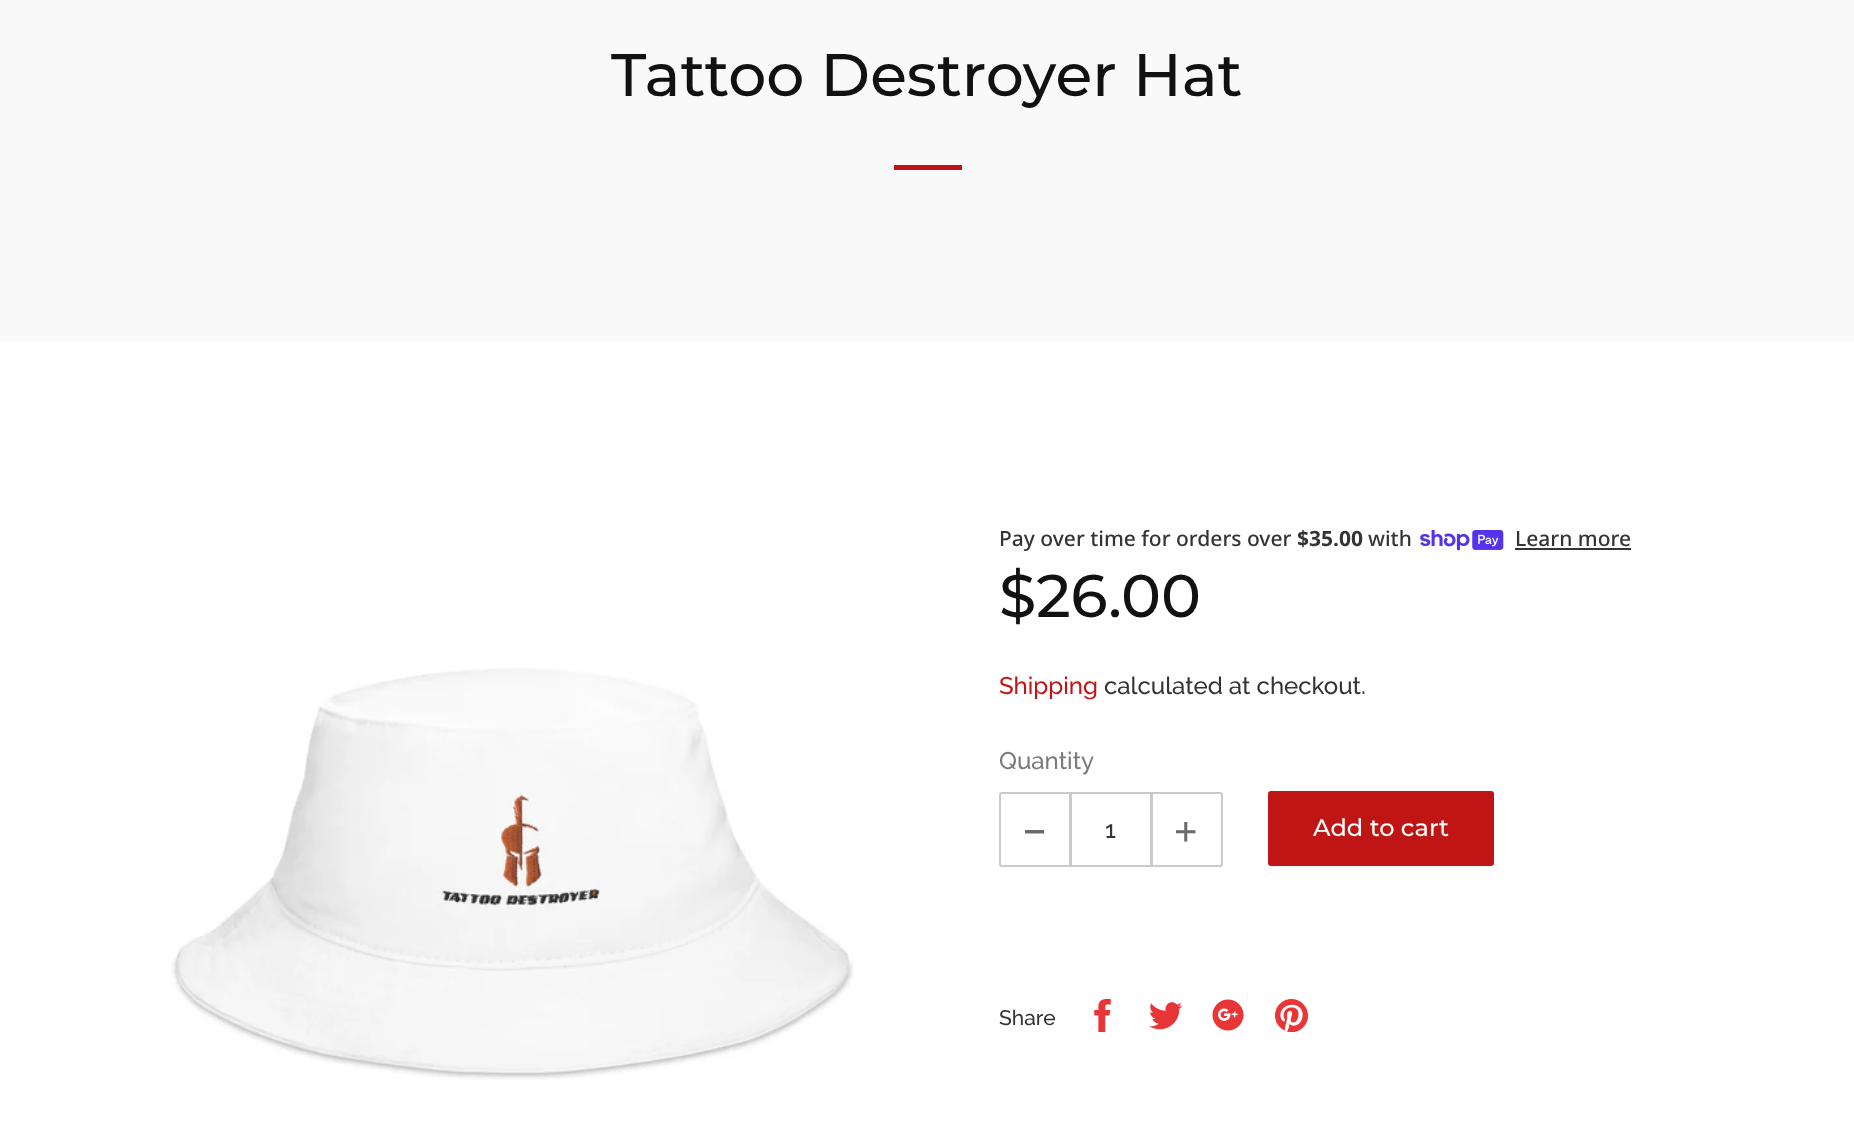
<svg xmlns="http://www.w3.org/2000/svg" xmlns:xlink="http://www.w3.org/1999/xlink" width="1854" height="1127" viewBox="0 0 1854 1127">
<style>
.cls-1{font:500 60px Montserrat;fill:#111111}
.cls-2{font:500 21px Noto Sans;fill:#343434}
.cls-3{font:bold 21px Noto Sans;fill:#343434}
.cls-4{font:500 24px Raleway;fill:#c01515}
.cls-5{font:500 24px Raleway;fill:#343434}
.cls-6{font:500 24px Raleway;fill:#7a7a7a}
.cls-7{font:500 24px Montserrat;fill:#ffffff}
.cls-8{font:500 21px Raleway;fill:#343434}
</style>
<defs>
<clipPath id="clip1"><rect x="1025" y="818" width="19" height="28"/></clipPath>
</defs>
<rect width="100%" height="100%" fill="#ffffff"/>
<rect fill="#f9f9f9" x="0" y="0" width="1854" height="342"/>
<rect fill="#c01515" x="894" y="165" width="68" height="5"/>
<image xlink:href="image0.png" x="171" y="668" width="683" height="412"/>
<image xlink:href="image1.png" x="1420" y="530" width="84" height="21"/>
<rect fill="#343434" x="1515" y="548" width="116" height="2"/>
<g clip-path="url(#clip1)">
<path fill="#6a6a6a" d="M1032.5 830H1024.5V833.5H1044V830Z"/>
</g>
<rect fill="none" stroke="#cacaca" stroke-width="2" x="1071" y="793" width="80" height="73"/>
<path fill="none" stroke="#cacaca" stroke-width="2" d="M1002 793H1070V866H1002C1001 866 1000 865 1000 864V795C1000 794 1001 793 1002 793Z"/>
<image xlink:href="image2.png" x="1176" y="822" width="20" height="20"/>
<path fill="none" stroke="#cacaca" stroke-width="2" d="M1152 793H1220C1221 793 1222 794 1222 795V864C1222 865 1221 866 1220 866H1152Z"/>
<rect fill="#c01515" x="1268" y="791" width="226" height="75" rx="3"/>
<image xlink:href="image3.png" x="1094" y="999" width="17" height="33"/>
<image xlink:href="image4.png" x="1149" y="1002" width="33" height="28"/>
<image xlink:href="image5.png" x="1212" y="999" width="32" height="32"/>
<image xlink:href="image6.png" x="1275" y="999" width="33" height="33"/>
<text class="cls-1" x="611" y="96">Tattoo Destroyer Hat</text>
<text class="cls-2" x="999" y="546">Pay over time for orders over</text>
<text class="cls-3" x="1297" y="546">$35.00</text>
<text class="cls-2" x="1368" y="546">with</text>
<text class="cls-2" x="1515" y="546">Learn more</text>
<text class="cls-1" x="999" y="617">$26.00</text>
<text class="cls-4" x="999" y="694">Shipping</text>
<text class="cls-5" x="1104" y="694">calculated at checkout.</text>
<text class="cls-6" x="999" y="769">Quantity</text>
<text class="cls-5" x="1105" y="838">1</text>
<text class="cls-7" x="1313" y="836">Add to cart</text>
<text class="cls-8" x="999" y="1025">Share</text>
</svg>
